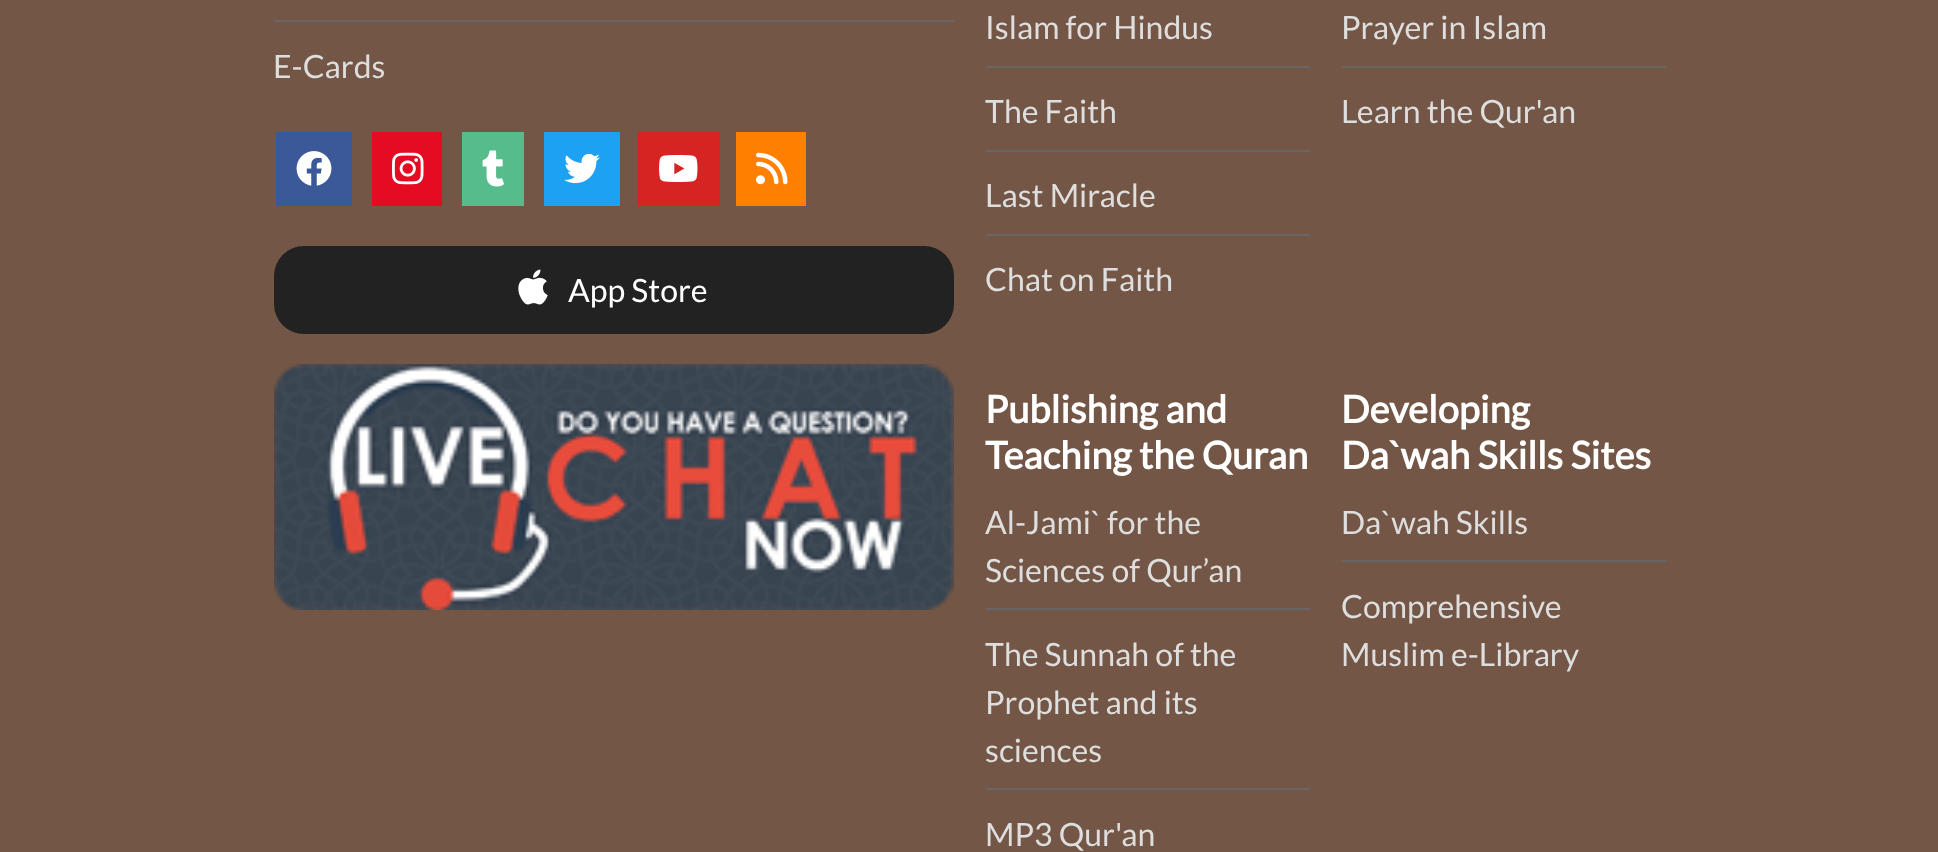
<svg xmlns="http://www.w3.org/2000/svg" xmlns:xlink="http://www.w3.org/1999/xlink" width="1938" height="852" viewBox="0 0 1938 852">
<style>
.cls-1{font:32px Lato;fill:#dedede}
.cls-2{font:32px Lato;fill:#ffffff}
.cls-3{font:bold 38px Lato;fill:#ffffff}
</style>
<rect width="100%" height="100%" fill="#735645"/>
<rect fill="#666666" x="274" y="20" width="680" height="2"/>
<rect fill="#3b5998" x="276" y="132" width="76" height="74"/>
<image xlink:href="image0.png" x="296" y="151" width="36" height="35"/>
<rect fill="#e40b23" x="372" y="132" width="70" height="74"/>
<image xlink:href="image1.png" x="392" y="152" width="32" height="33"/>
<rect fill="#56bc8b" x="462" y="132" width="62" height="74"/>
<image xlink:href="image2.png" x="482" y="150" width="22" height="37"/>
<rect fill="#1da1f2" x="544" y="132" width="76" height="74"/>
<image xlink:href="image3.png" x="564" y="153" width="36" height="31"/>
<rect fill="#d62422" x="638" y="132" width="82" height="74"/>
<image xlink:href="image4.png" x="659" y="155" width="39" height="27"/>
<rect fill="#ff8000" x="736" y="132" width="70" height="74"/>
<image xlink:href="image5.png" x="756" y="152" width="32" height="33"/>
<rect fill="#222222" x="274" y="246" width="680" height="88" rx="30"/>
<image xlink:href="image6.png" x="518" y="269" width="30" height="36"/>
<image xlink:href="image7.png" x="274" y="364" width="680" height="246"/>
<rect fill="#666666" x="986" y="66" width="324" height="2"/>
<rect fill="#666666" x="986" y="150" width="324" height="2"/>
<rect fill="#666666" x="986" y="234" width="324" height="2"/>
<rect fill="#666666" x="1342" y="66" width="324" height="2"/>
<rect fill="#666666" x="986" y="608" width="324" height="2"/>
<rect fill="#666666" x="986" y="788" width="324" height="2"/>
<rect fill="#666666" x="1342" y="560" width="324" height="2"/>
<text class="cls-1" x="273" y="78">E-Cards</text>
<text class="cls-2" x="568" y="302">App Store</text>
<text class="cls-1" x="985" y="39">Islam for Hindus</text>
<text class="cls-1" x="985" y="123">The Faith</text>
<text class="cls-1" x="985" y="207">Last Miracle</text>
<text class="cls-1" x="985" y="291">Chat on Faith</text>
<text class="cls-1" x="1341" y="39">Prayer in Islam</text>
<text class="cls-1" x="1341" y="123">Learn the Qur'an</text>
<text class="cls-3"><tspan x="985" y="423">Publishing and</tspan><tspan x="985" y="469">Teaching the Quran</tspan></text>
<text class="cls-1"><tspan x="985" y="534">Al-Jami` for the</tspan><tspan x="985" y="582">Sciences of Qur’an</tspan></text>
<text class="cls-1"><tspan x="985" y="666">The Sunnah of the</tspan><tspan x="985" y="714">Prophet and its</tspan><tspan x="985" y="762">sciences</tspan></text>
<text class="cls-1" x="985" y="846">MP3 Qur'an</text>
<text class="cls-3"><tspan x="1341" y="423">Developing</tspan><tspan x="1341" y="469">Da`wah Skills Sites</tspan></text>
<text class="cls-1" x="1341" y="534">Da`wah Skills</text>
<text class="cls-1"><tspan x="1341" y="618">Comprehensive</tspan><tspan x="1341" y="666">Muslim e-Library</tspan></text>
</svg>
